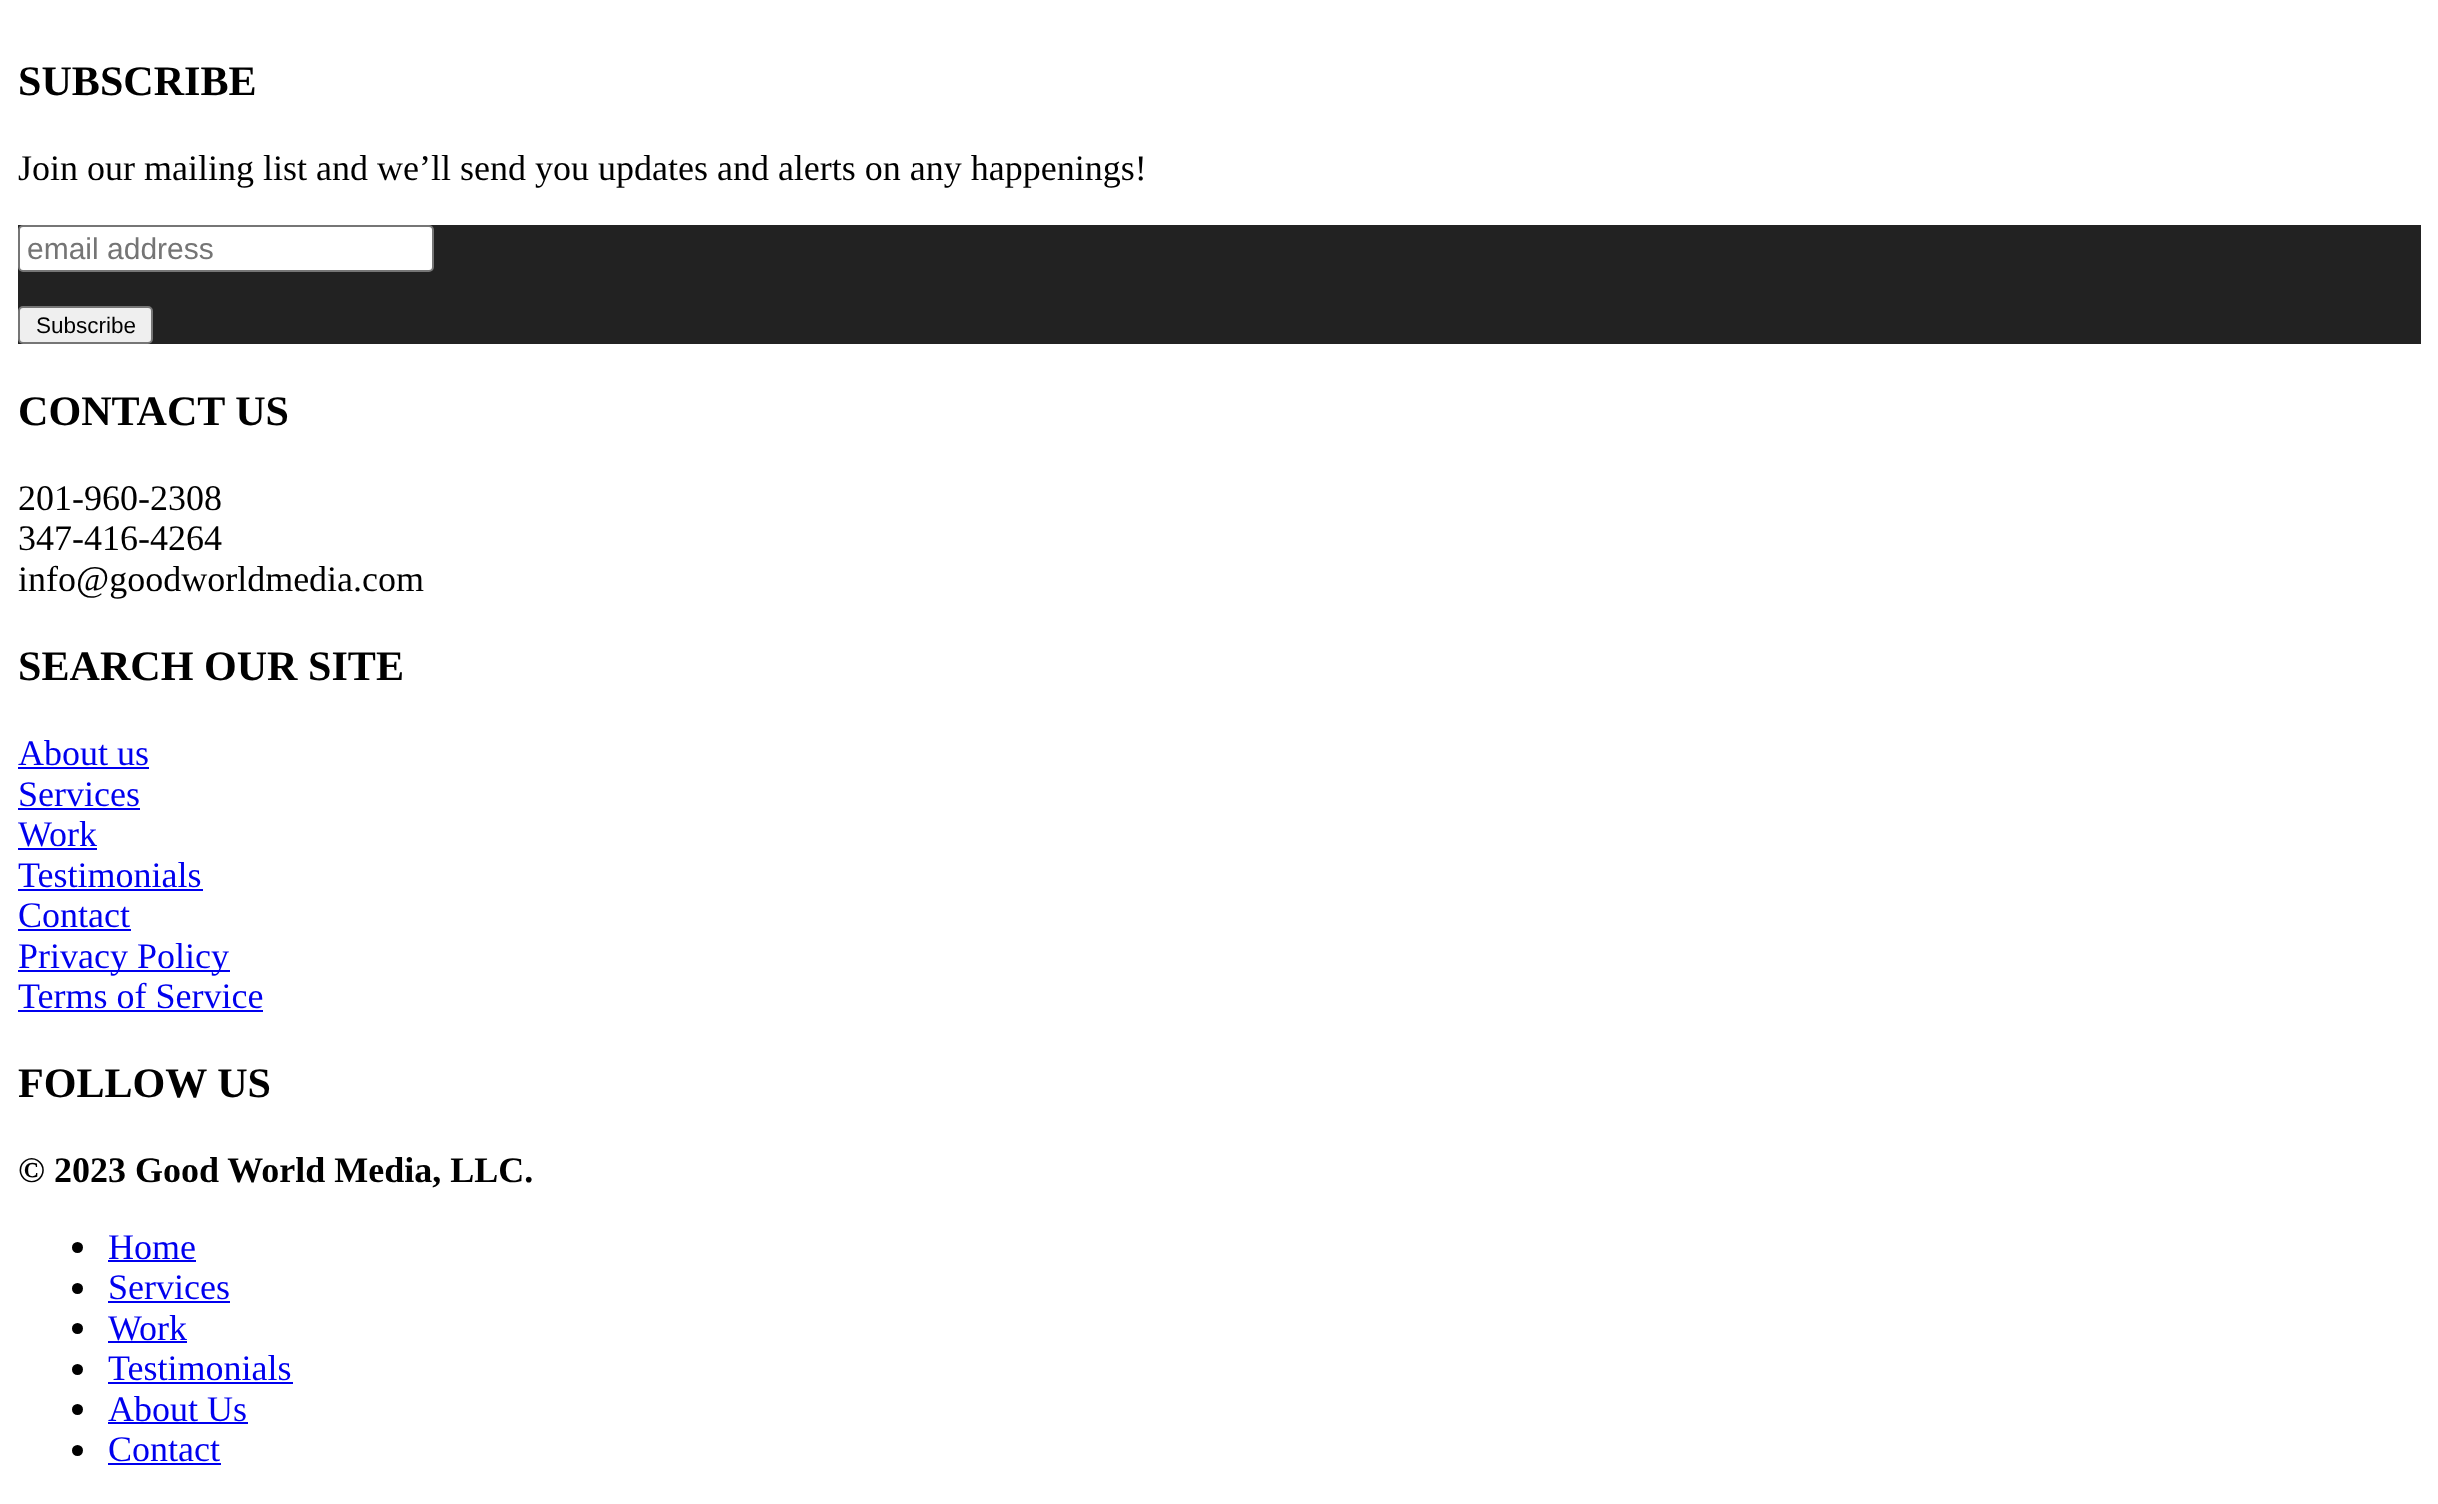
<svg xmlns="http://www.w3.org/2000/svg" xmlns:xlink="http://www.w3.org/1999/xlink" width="2438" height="1504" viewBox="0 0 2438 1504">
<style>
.cls-1{font:bold 42.1px Liberation Serif;fill:#000000}
.cls-2{font:36px Liberation Serif;fill:#000000}
.cls-3{font:30px Liberation Sans;fill:#757575}
.cls-4{font:22.5px Liberation Sans;fill:#000000}
.cls-5{font:36px Liberation Serif;fill:#0000ee}
.cls-6{font:bold 36px Liberation Serif;fill:#000000}
</style>
<rect width="100%" height="100%" fill="#ffffff"/>
<rect fill="#222222" x="18" y="225" width="2403" height="119"/>
<rect fill="#ffffff" stroke="#767676" stroke-width="2" x="19" y="226" width="414" height="45" rx="4"/>
<rect fill="#efefef" stroke="#767676" stroke-width="2" x="19" y="307" width="133" height="36" rx="4"/>
<rect fill="#0000ee" x="18" y="767" width="131" height="2"/>
<rect fill="#0000ee" x="18" y="808" width="122" height="2"/>
<rect fill="#0000ee" x="18" y="848" width="79" height="2"/>
<rect fill="#0000ee" x="18" y="889" width="185" height="2"/>
<rect fill="#0000ee" x="18" y="929" width="113" height="2"/>
<rect fill="#0000ee" x="18" y="970" width="212" height="2"/>
<rect fill="#0000ee" x="18" y="1010" width="245" height="2"/>
<circle fill="#000000" cx="77.5" cy="1247.5" r="5.5"/>
<rect fill="#0000ee" x="108" y="1260" width="88" height="2"/>
<circle fill="#000000" cx="77.5" cy="1288.5" r="5.5"/>
<rect fill="#0000ee" x="108" y="1301" width="122" height="2"/>
<circle fill="#000000" cx="77.5" cy="1328.5" r="5.5"/>
<rect fill="#0000ee" x="108" y="1341" width="79" height="2"/>
<circle fill="#000000" cx="77.5" cy="1369.5" r="5.5"/>
<rect fill="#0000ee" x="108" y="1382" width="185" height="2"/>
<circle fill="#000000" cx="77.5" cy="1409.5" r="5.5"/>
<rect fill="#0000ee" x="108" y="1422" width="140" height="2"/>
<circle fill="#000000" cx="77.5" cy="1450.5" r="5.5"/>
<rect fill="#0000ee" x="108" y="1463" width="113" height="2"/>
<text class="cls-1" x="18" y="95">SUBSCRIBE</text>
<text class="cls-2" x="18" y="180">Join our mailing list and we’ll send you updates and alerts on any happenings!</text>
<text class="cls-3" x="27" y="259">email address</text>
<text class="cls-4" x="36" y="333">Subscribe</text>
<text class="cls-1" x="18" y="425">CONTACT US</text>
<text class="cls-2"><tspan x="18" y="510">201-960-2308</tspan><tspan x="18" y="550">347-416-4264</tspan><tspan x="18" y="591">info@goodworldmedia.com</tspan></text>
<text class="cls-1" x="18" y="680">SEARCH OUR SITE</text>
<text class="cls-5"><tspan x="18" y="765">About us</tspan><tspan x="18" y="806">Services</tspan><tspan x="18" y="846">Work</tspan><tspan x="18" y="887">Testimonials</tspan><tspan x="18" y="927">Contact</tspan><tspan x="18" y="968">Privacy Policy</tspan><tspan x="18" y="1008">Terms of Service</tspan></text>
<text class="cls-1" x="18" y="1097">FOLLOW US</text>
<text class="cls-6" x="18" y="1182">© 2023 Good World Media, LLC.</text>
<text class="cls-5"><tspan x="108" y="1259">Home</tspan><tspan x="108" y="1299">Services</tspan><tspan x="108" y="1340">Work</tspan><tspan x="108" y="1380">Testimonials</tspan><tspan x="108" y="1421">About Us</tspan><tspan x="108" y="1461">Contact</tspan></text>
</svg>
